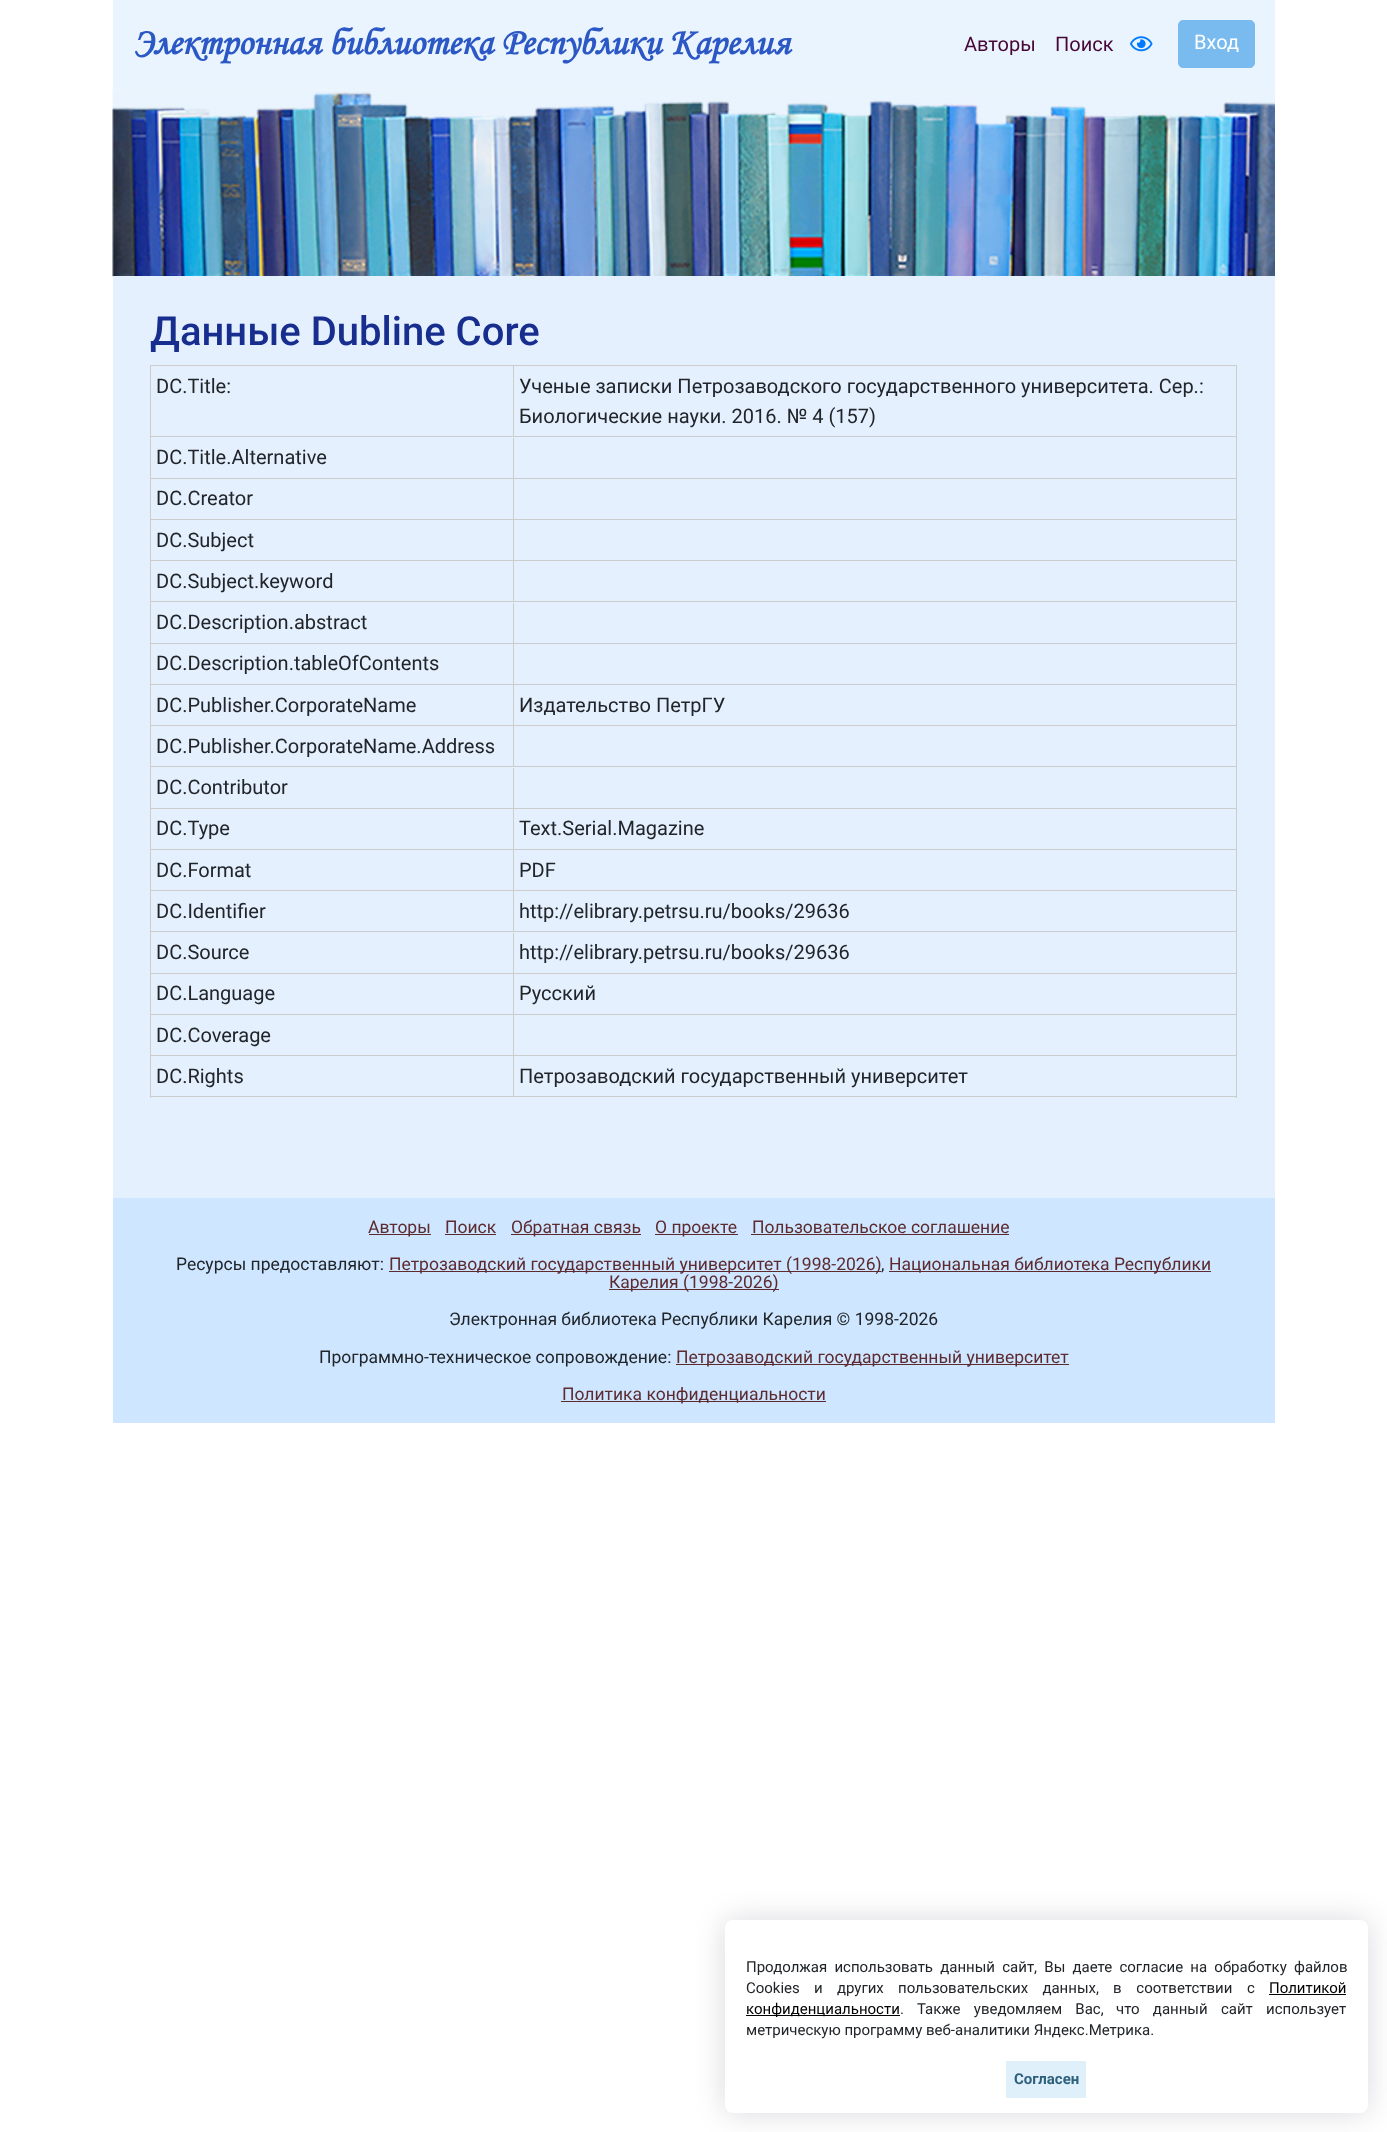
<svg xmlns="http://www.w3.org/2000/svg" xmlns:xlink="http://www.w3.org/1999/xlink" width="1387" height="2132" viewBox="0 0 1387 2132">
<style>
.cls-1{font:italic bold 37.5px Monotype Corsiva;fill:#2c58c5}
.cls-2{font:20px Roboto;fill:#470736}
.cls-3{font:20px Roboto;fill:#ffffff}
.cls-4{font:500 40px Roboto;fill:#172e8e}
.cls-5{font:20px Roboto;fill:#212529}
.cls-6{font:17.5px Roboto;fill:#5d2b2f}
.cls-7{font:17.5px Roboto;fill:#212529}
.cls-8{font:15px Roboto;fill:#212529}
.cls-9{font:15px Roboto;fill:#000000}
.cls-10{font:bold 15px Roboto;fill:#2d607d}
</style>
<rect width="100%" height="100%" fill="#ffffff"/>
<image xlink:href="image1.png" x="112" y="88" width="1163" height="189"/>
<rect fill="#eaf4fe" x="113" y="0" width="1162" height="89"/>
<image xlink:href="image0.png" x="1130" y="36" width="23" height="16"/>
<rect fill="#79bbef" stroke="#79bbef" x="1178.5" y="20.5" width="76" height="47" rx="4.5"/>
<rect fill="#e5f0ff" x="113" y="276" width="1162" height="922"/>
<rect fill="#cccccc" x="1236" y="365" width="1" height="733"/>
<rect fill="#cccccc" x="150" y="365" width="1" height="733"/>
<rect fill="#cccccc" x="151" y="365" width="1085" height="1"/>
<rect fill="#cccccc" x="151" y="436" width="1085" height="1"/>
<rect fill="#cccccc" x="513" y="366" width="1" height="70"/>
<rect fill="#cccccc" x="151" y="478" width="1085" height="1"/>
<rect fill="#cccccc" x="513" y="438" width="1" height="40"/>
<rect fill="#cccccc" x="151" y="519" width="1085" height="1"/>
<rect fill="#cccccc" x="513" y="479" width="1" height="40"/>
<rect fill="#cccccc" x="151" y="560" width="1085" height="1"/>
<rect fill="#cccccc" x="513" y="520" width="1" height="40"/>
<rect fill="#cccccc" x="151" y="601" width="1085" height="1"/>
<rect fill="#cccccc" x="513" y="561" width="1" height="40"/>
<rect fill="#cccccc" x="151" y="643" width="1085" height="1"/>
<rect fill="#cccccc" x="513" y="603" width="1" height="40"/>
<rect fill="#cccccc" x="151" y="684" width="1085" height="1"/>
<rect fill="#cccccc" x="513" y="644" width="1" height="40"/>
<rect fill="#cccccc" x="151" y="725" width="1085" height="1"/>
<rect fill="#cccccc" x="513" y="685" width="1" height="40"/>
<rect fill="#cccccc" x="151" y="766" width="1085" height="1"/>
<rect fill="#cccccc" x="513" y="726" width="1" height="40"/>
<rect fill="#cccccc" x="151" y="808" width="1085" height="1"/>
<rect fill="#cccccc" x="513" y="768" width="1" height="40"/>
<rect fill="#cccccc" x="151" y="849" width="1085" height="1"/>
<rect fill="#cccccc" x="513" y="809" width="1" height="40"/>
<rect fill="#cccccc" x="151" y="890" width="1085" height="1"/>
<rect fill="#cccccc" x="513" y="850" width="1" height="40"/>
<rect fill="#cccccc" x="151" y="931" width="1085" height="1"/>
<rect fill="#cccccc" x="513" y="891" width="1" height="40"/>
<rect fill="#cccccc" x="151" y="973" width="1085" height="1"/>
<rect fill="#cccccc" x="513" y="933" width="1" height="40"/>
<rect fill="#cccccc" x="151" y="1014" width="1085" height="1"/>
<rect fill="#cccccc" x="513" y="974" width="1" height="40"/>
<rect fill="#cccccc" x="151" y="1055" width="1085" height="1"/>
<rect fill="#cccccc" x="513" y="1015" width="1" height="40"/>
<rect fill="#cccccc" x="151" y="1096" width="1085" height="1"/>
<rect fill="#cccccc" x="513" y="1056" width="1" height="40"/>
<rect fill="#cee6ff" x="113" y="1198" width="1162" height="225"/>
<rect fill="#5d2b2f" x="369" y="1234" width="62" height="1"/>
<rect fill="#5d2b2f" x="445" y="1234" width="51" height="1"/>
<rect fill="#5d2b2f" x="511" y="1234" width="130" height="1"/>
<rect fill="#5d2b2f" x="655" y="1234" width="83" height="1"/>
<rect fill="#5d2b2f" x="751" y="1234" width="258" height="1"/>
<rect fill="#5d2b2f" x="389" y="1271" width="492" height="1"/>
<rect fill="#5d2b2f" x="889" y="1271" width="322" height="1"/>
<rect fill="#5d2b2f" x="609" y="1289" width="170" height="1"/>
<rect fill="#5d2b2f" x="676" y="1364" width="393" height="1"/>
<rect fill="#5d2b2f" x="561" y="1401" width="265" height="1"/>
<rect fill="#05001f" fill-opacity="0.15" filter="blur(15px)" x="725" y="1920" width="643" height="193" rx="8"/>
<rect fill="#ffffff" x="725" y="1920" width="643" height="193" rx="8"/>
<rect fill="#000000" x="1269" y="1994" width="77" height="1"/>
<rect fill="#000000" x="746" y="2015" width="154" height="1"/>
<rect fill="#e0f0fa" x="1006" y="2061" width="80" height="37"/>
<text class="cls-1" x="133" y="54">Электронная библиотека Республики Карелия</text>
<text class="cls-2" x="964" y="51">Авторы</text>
<text class="cls-2" x="1055" y="51">Поиск</text>
<text class="cls-3" x="1194" y="49">Вход</text>
<text class="cls-4" x="150" y="345">Данные Dubline Core</text>
<text class="cls-5" x="156" y="393">DC.Title:</text>
<text class="cls-5"><tspan x="519" y="393">Ученые записки Петрозаводского государственного университета. Сер.:</tspan><tspan x="519" y="423">Биологические науки. 2016. № 4 (157)</tspan></text>
<text class="cls-5" x="156" y="464">DC.Title.Alternative</text>
<text class="cls-5" x="156" y="505">DC.Creator</text>
<text class="cls-5" x="156" y="547">DC.Subject</text>
<text class="cls-5" x="156" y="588">DC.Subject.keyword</text>
<text class="cls-5" x="156" y="629">DC.Description.abstract</text>
<text class="cls-5" x="156" y="670">DC.Description.tableOfContents</text>
<text class="cls-5" x="156" y="712">DC.Publisher.CorporateName</text>
<text class="cls-5" x="519" y="712">Издательство ПетрГУ</text>
<text class="cls-5" x="156" y="753">DC.Publisher.CorporateName.Address</text>
<text class="cls-5" x="156" y="794">DC.Contributor</text>
<text class="cls-5" x="156" y="835">DC.Type</text>
<text class="cls-5" x="519" y="835">Text.Serial.Magazine</text>
<text class="cls-5" x="156" y="877">DC.Format</text>
<text class="cls-5" x="519" y="877">PDF</text>
<text class="cls-5" x="156" y="918">DC.Identifier</text>
<text class="cls-5" x="519" y="918">http://elibrary.petrsu.ru/books/29636</text>
<text class="cls-5" x="156" y="959">DC.Source</text>
<text class="cls-5" x="519" y="959">http://elibrary.petrsu.ru/books/29636</text>
<text class="cls-5" x="156" y="1000">DC.Language</text>
<text class="cls-5" x="519" y="1000">Русский</text>
<text class="cls-5" x="156" y="1042">DC.Coverage</text>
<text class="cls-5" x="156" y="1083">DC.Rights</text>
<text class="cls-5" x="519" y="1083">Петрозаводский государственный университет</text>
<text class="cls-6" x="368" y="1233">Авторы</text>
<text class="cls-6" x="445" y="1233">Поиск</text>
<text class="cls-6" x="511" y="1233">Обратная связь</text>
<text class="cls-6" x="655" y="1233">О проекте</text>
<text class="cls-6" x="752" y="1233">Пользовательское соглашение</text>
<text class="cls-7" x="176" y="1270">Ресурсы предоставляют:</text>
<text class="cls-6" x="389" y="1270">Петрозаводский государственный университет (1998-2026)</text>
<text class="cls-7" x="881" y="1270">,</text>
<text class="cls-6" x="889" y="1270">Национальная библиотека Республики</text>
<text class="cls-6" x="609" y="1288">Карелия (1998-2026)</text>
<text class="cls-7" x="449" y="1325">Электронная библиотека Республики Карелия © 1998-2026</text>
<text class="cls-7" x="319" y="1363">Программно-техническое сопровождение:</text>
<text class="cls-6" x="676" y="1363">Петрозаводский государственный университет</text>
<text class="cls-6" x="562" y="1400">Политика конфиденциальности</text>
<text class="cls-8"><tspan x="746" y="1972" word-spacing="3.5">Продолжая использовать данный сайт, Вы даете согласие на обработку файлов</tspan><tspan x="746" y="1993" word-spacing="10.5">Cookies и других пользовательских данных,</tspan></text>
<text class="cls-8" x="1113" y="1993" word-spacing="11">в соответствии с</text>
<text class="cls-9" x="1269" y="1993">Политикой</text>
<text class="cls-9" x="746" y="2014">конфиденциальности</text>
<text class="cls-8" x="900" y="2014" word-spacing="9.5">. Также уведомляем Вас,</text>
<text class="cls-8" x="1116" y="2014" word-spacing="9.5">что данный сайт использует</text>
<text class="cls-8" x="746" y="2035">метрическую программу веб-аналитики Яндекс.Метрика.</text>
<text class="cls-10" x="1014" y="2084">Согласен</text>
</svg>
